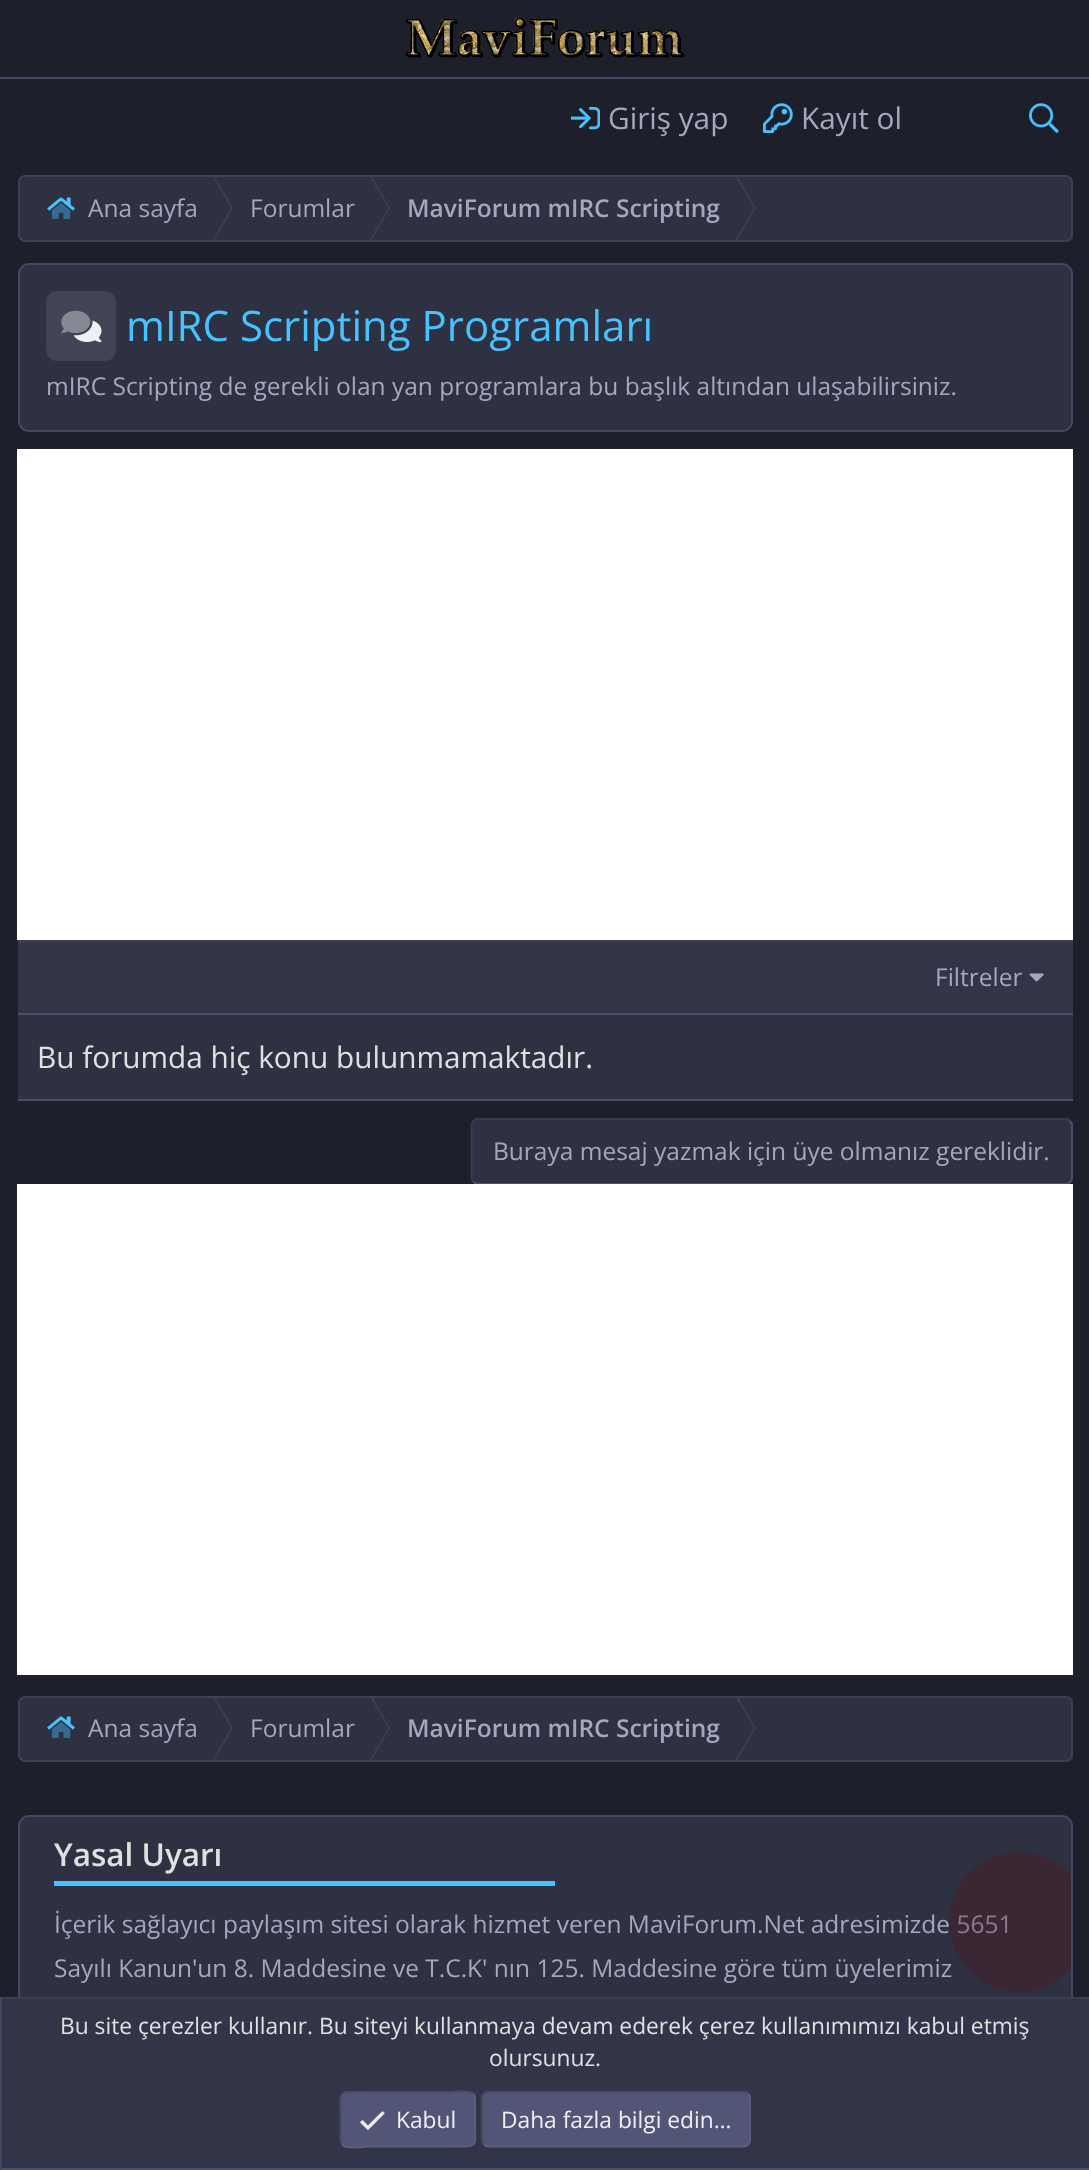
<svg xmlns="http://www.w3.org/2000/svg" xmlns:xlink="http://www.w3.org/1999/xlink" width="1089" height="2170" viewBox="0 0 1089 2170">
<style>
.cls-1{font:29.75px Open Sans;fill:#a5a7c0}
.cls-2{font:24.5px Open Sans;fill:#a5a7c0}
.cls-3{font:600 24.5px Open Sans;fill:#a5a7c0}
.cls-4{font:42px Open Sans;fill:#47c2ff}
.cls-5{font:29.75px Open Sans;fill:#e0e0e0}
.cls-6{font:600 31.5px Open Sans;fill:#e0e0e0}
.cls-7{font:22.75px Open Sans;fill:#e0e0e0}
.cls-8{font:22.75px Open Sans;fill:#efeff6}
</style>
<defs>
<clipPath id="clip1"><rect x="19" y="177" width="1052" height="63"/></clipPath>
<clipPath id="clip2"><rect x="19" y="1698" width="1052" height="63"/></clipPath>
<clipPath id="clip3"><rect x="19" y="1817" width="1052" height="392" rx="9"/></clipPath>
</defs>
<rect width="100%" height="100%" fill="#1d1f2a"/>
<rect fill="#434760" x="0" y="77" width="1089" height="2"/>
<image xlink:href="image0.png" x="406" y="17" width="278" height="41"/>
<image xlink:href="image1.png" x="571" y="107" width="29" height="23"/>
<image xlink:href="image2.png" x="763" y="103" width="30" height="30"/>
<image xlink:href="image3.png" x="1029" y="103" width="30" height="30"/>
<rect fill="#2e3142" x="18" y="175" width="1055" height="67" rx="7"/>
<rect fill="none" stroke="#585e7e" stroke-opacity="0.35" stroke-width="2" x="19" y="176" width="1053" height="65" rx="6"/>
<image xlink:href="image4.png" x="47" y="197" width="28" height="22"/>
<path fill="#3e4258" d="M213 176.5H214.5L233 208H231ZM231 208H233L214.5 239.5H213Z"/>
<g clip-path="url(#clip1)">
<path fill="#3e4258" d="M370 176.5H372L390 208H388.5Z"/>
</g>
<path fill="#3e4258" d="M388.5 208H390L372 239.5H370Z"/>
<g clip-path="url(#clip1)">
<path fill="#3e4258" d="M735.5 176.5H737.5L755.5 208H754Z"/>
</g>
<path fill="#3e4258" d="M754 208H755.5L737.5 239.5H735.5Z"/>
<rect fill="#2e3142" stroke="#434760" stroke-width="2" x="19" y="264" width="1053" height="167" rx="10"/>
<rect fill="#414454" x="46" y="291" width="70" height="70" rx="11"/>
<image xlink:href="image5.png" x="61" y="310" width="41" height="32"/>
<rect fill="#ffffff" x="17" y="449" width="1056" height="491"/>
<rect fill="#2e3142" x="18" y="1015" width="1055" height="84"/>
<rect fill="#3b3e54" x="18" y="940" width="1055" height="2"/>
<rect fill="#4b506c" x="18" y="1099" width="1055" height="2"/>
<rect fill="#323448" x="18" y="942" width="1055" height="71"/>
<rect fill="#4b506c" x="18" y="1013" width="1055" height="2"/>
<image xlink:href="image6.png" x="1029" y="973" width="15" height="9"/>
<rect fill="#2e3142" x="471" y="1118" width="602" height="67" rx="7"/>
<path fill="none" stroke="#4d526f" stroke-width="1.8" d="M1070 1121C1071 1122 1072 1123.5 1072 1125V1178C1072 1179.5 1071 1181 1070 1182C1069 1183 1067.5 1184 1066 1184H478C476 1184 474.5 1183 473.5 1182"/>
<path fill="none" stroke="#383c51" stroke-width="1.8" d="M473.5 1182C472.5 1181 471.5 1179.5 471.5 1178V1125C471.5 1123.5 472.5 1122 473.5 1121C474.5 1120 476 1119 478 1119H1066C1067.5 1119 1069 1120 1070 1121"/>
<rect fill="#ffffff" x="17" y="1184" width="1056" height="491"/>
<rect fill="#2e3142" x="18" y="1696" width="1055" height="66" rx="7"/>
<rect fill="none" stroke="#585e7e" stroke-opacity="0.35" stroke-width="2" x="19" y="1697" width="1053" height="64" rx="6"/>
<g clip-path="url(#clip2)">
<path fill="#3e4258" d="M213 1696.5H214.5L233 1728H231Z"/>
</g>
<image xlink:href="image4.png" x="47" y="1716" width="28" height="22"/>
<path fill="#3e4258" d="M231 1728H233L214.5 1759.5H213Z"/>
<g clip-path="url(#clip2)">
<path fill="#3e4258" d="M370 1696.5H372L390 1728H388.5Z"/>
</g>
<path fill="#3e4258" d="M388.5 1728H390L372 1759.5H370Z"/>
<g clip-path="url(#clip2)">
<path fill="#3e4258" d="M735.5 1696.5H737.5L755.5 1728H754Z"/>
</g>
<path fill="#3e4258" d="M754 1728H755.5L737.5 1759.5H735.5Z"/>
<rect fill="#2e3142" stroke="#434760" stroke-width="2" x="19" y="1816" width="1053" height="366" rx="10"/>
<rect fill="#47c2ff" x="54" y="1881" width="501" height="5"/>
<rect fill="#323448" x="2" y="1999" width="1087" height="169"/>
<rect fill="#3b3e54" x="0" y="1997" width="1089" height="2"/>
<rect fill="#4b506c" x="0" y="2168" width="1089" height="2"/>
<rect fill="#434760" x="0" y="1997" width="2" height="173"/>
<rect fill="#525575" x="340" y="2091" width="136" height="56" rx="7"/>
<path fill="none" stroke="#5c5f84" stroke-width="1.8" d="M473.5 2094C476 2097 475 2102 475 2105V2119C475 2150 480 2146.5 448.5 2146.5H367C366.5 2146.5 347 2149.5 342 2144.5"/>
<path fill="none" stroke="#474a66" stroke-width="1.8" d="M342 2144.5C339.5 2141.5 340.5 2136.5 340.5 2133V2119C340.5 2088.5 335.5 2092 367 2092H448.5C449 2092 468.5 2089 473.5 2094"/>
<image xlink:href="image7.png" x="359" y="2111" width="26" height="19"/>
<rect fill="#525575" x="481" y="2091" width="270" height="56" rx="7"/>
<path fill="none" stroke="#5c5f84" stroke-width="1.8" d="M748 2094C749 2095 750 2096.5 750 2098V2140C750 2142 749 2143.5 748 2144.5C747 2145.5 745.5 2146.5 744 2146.5H488C486.5 2146.5 485 2145.5 484 2144.5"/>
<path fill="none" stroke="#474a66" stroke-width="1.8" d="M484 2144.5C483 2143.5 482 2142 482 2140V2098C482 2096.5 483 2095 484 2094C485 2093 486.5 2092 488 2092H744C745.5 2092 747 2093 748 2094"/>
<text class="cls-1" x="608" y="129">Giriş yap</text>
<text class="cls-1" x="801" y="129">Kayıt ol</text>
<text class="cls-2" x="88" y="217">Ana sayfa</text>
<text class="cls-2" x="250" y="217">Forumlar</text>
<text class="cls-3" x="407" y="217">MaviForum mIRC Scripting</text>
<text class="cls-4" x="126" y="341">mIRC Scripting Programları</text>
<text class="cls-2" x="46" y="395">mIRC Scripting de gerekli olan yan programlara bu başlık altından ulaşabilirsiniz.</text>
<text class="cls-2" x="935" y="986">Filtreler</text>
<text class="cls-5" x="37" y="1068">Bu forumda hiç konu bulunmamaktadır.</text>
<text class="cls-2" x="493" y="1160">Buraya mesaj yazmak için üye olmanız gereklidir.</text>
<text class="cls-2" x="88" y="1737">Ana sayfa</text>
<text class="cls-2" x="250" y="1737">Forumlar</text>
<text class="cls-3" x="407" y="1737">MaviForum mIRC Scripting</text>
<text class="cls-6" x="54" y="1866">Yasal Uyarı</text>
<text class="cls-2"><tspan x="54" y="1933">İçerik sağlayıcı paylaşım sitesi olarak hizmet veren MaviForum.Net adresimizde 5651</tspan><tspan x="54" y="1977">Sayılı Kanun'un 8. Maddesine ve T.C.K' nın 125. Maddesine göre tüm üyelerimiz</tspan></text>
<g clip-path="url(#clip3)">
<circle fill="#570f12" fill-opacity="0.3" cx="1019" cy="1922" r="70"/>
</g>
<text class="cls-7" x="60" y="2034">Bu site çerezler kullanır. Bu siteyi kullanmaya devam ederek çerez kullanımımızı kabul etmiş</text>
<text class="cls-7" x="489" y="2066">olursunuz.</text>
<text class="cls-8" x="396" y="2128">Kabul</text>
<text class="cls-8" x="501" y="2128">Daha fazla bilgi edin…</text>
</svg>
